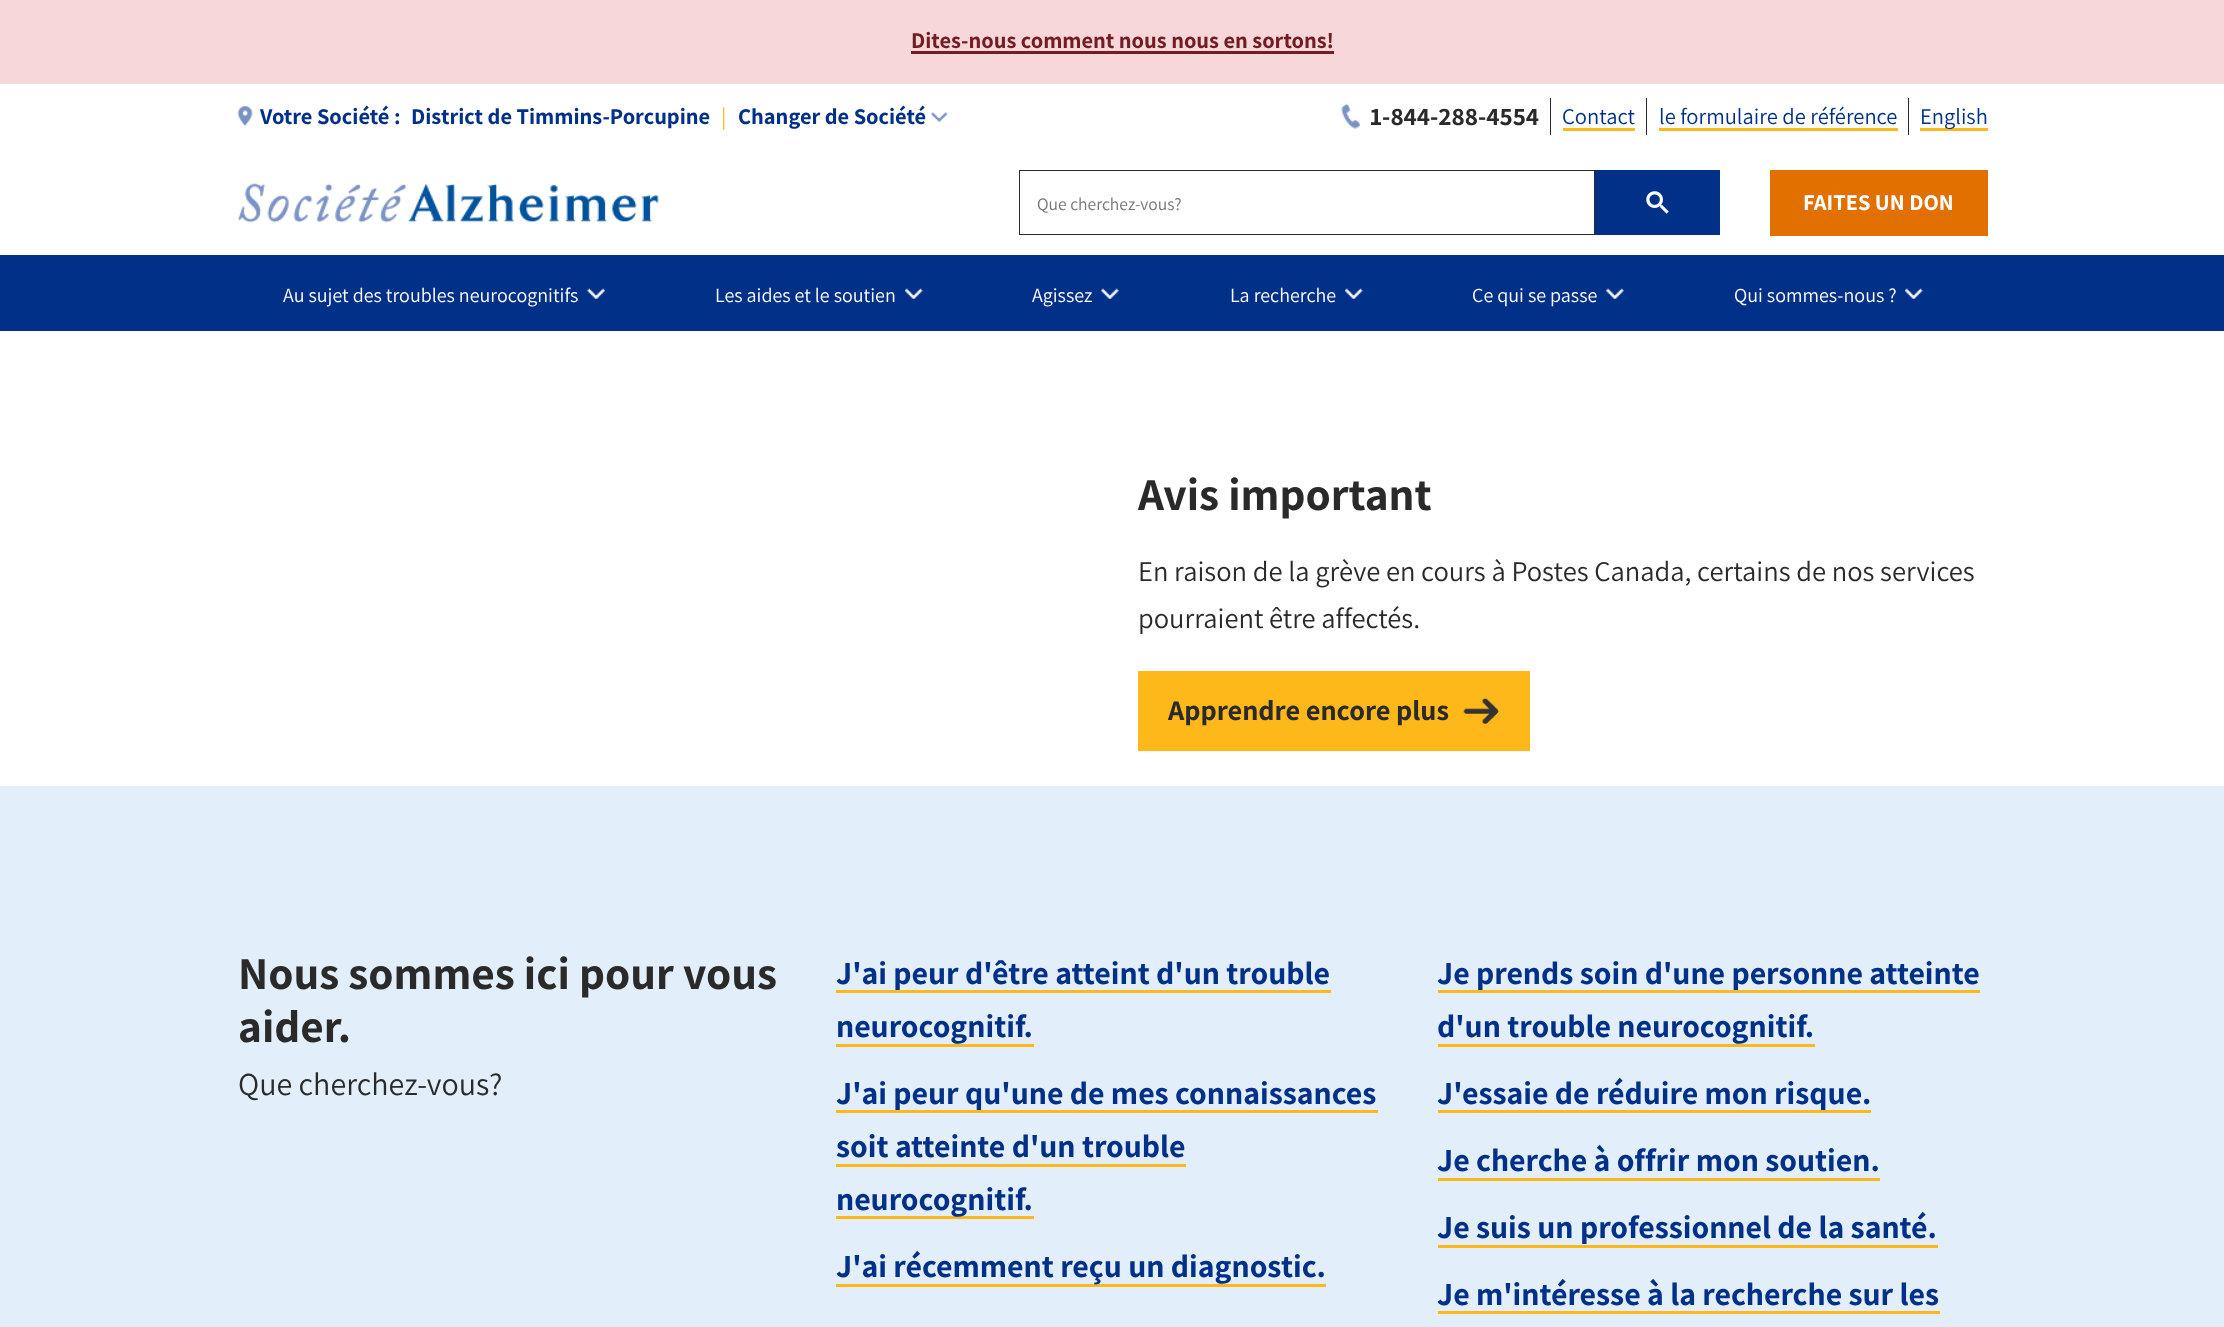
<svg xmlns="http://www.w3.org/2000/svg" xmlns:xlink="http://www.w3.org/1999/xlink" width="2224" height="1327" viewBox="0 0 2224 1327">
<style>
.cls-1{font:bold 22.5px Assistant;fill:#721c24}
.cls-2{font:bold 22.5px Assistant;fill:#003087}
.cls-3{font:22.5px Assistant;fill:#ffb819}
.cls-4{font:bold 25.25px Assistant;fill:#2a2a2a}
.cls-5{font:22.5px Assistant;fill:#003087}
.cls-6{font:17.5px Assistant;fill:#757575}
.cls-7{font:bold 22.5px Assistant;fill:#ffffff}
.cls-8{font:20px Assistant;fill:#ffffff}
.cls-9{font:bold 45.6px Assistant;fill:#2a2a2a}
.cls-10{font:28.5px Assistant;fill:#2a2a2a}
.cls-11{font:bold 28.5px Assistant;fill:#2a2a2a}
.cls-12{font:32px Assistant;fill:#2a2a2a}
.cls-13{font:bold 32px Assistant;fill:#003087}
</style>
<rect width="100%" height="100%" fill="#ffffff"/>
<rect fill="#f8d7da" x="0" y="0" width="2224" height="84"/>
<rect fill="#721c24" x="911" y="51" width="423" height="3"/>
<image xlink:href="image0.png" x="237" y="106" width="711" height="20"/>
<image xlink:href="image1.png" x="1341" y="103" width="19" height="26"/>
<rect fill="#2a2a2a" x="1646" y="98" width="1" height="37"/>
<rect fill="#2a2a2a" x="1550" y="98" width="1" height="37"/>
<rect fill="#ffb819" x="1563" y="128" width="72" height="3"/>
<rect fill="#ffb819" x="1659" y="128" width="239" height="3"/>
<rect fill="#2a2a2a" x="1908" y="98" width="1" height="37"/>
<rect fill="#ffb819" x="1920" y="128" width="68" height="3"/>
<image xlink:href="image2.png" x="238" y="183" width="421" height="40"/>
<rect fill="none" stroke="#2a2a2a" x="1019.5" y="170.5" width="575" height="64"/>
<rect fill="#003087" x="1595" y="170" width="125" height="65"/>
<image xlink:href="image3.png" x="1646" y="191" width="23" height="23"/>
<rect fill="#e27000" x="1770" y="170" width="218" height="66"/>
<rect fill="#003087" x="0" y="255" width="2224" height="76"/>
<image xlink:href="image4.png" x="587" y="288" width="18" height="11"/>
<image xlink:href="image5.png" x="905" y="288" width="18" height="11"/>
<image xlink:href="image6.png" x="1101" y="288" width="18" height="11"/>
<image xlink:href="image5.png" x="1345" y="288" width="18" height="11"/>
<image xlink:href="image6.png" x="1606" y="288" width="18" height="11"/>
<image xlink:href="image5.png" x="1905" y="288" width="18" height="11"/>
<rect fill="#ffb819" x="1138" y="671" width="392" height="80"/>
<image xlink:href="image7.png" x="1463" y="698" width="36" height="26"/>
<rect fill="#e2eef9" x="0" y="786" width="2224" height="541"/>
<rect fill="#ffb819" x="836" y="990" width="495" height="3"/>
<rect fill="#ffb819" x="836" y="1044" width="198" height="3"/>
<rect fill="#ffb819" x="1438" y="990" width="542" height="3"/>
<rect fill="#ffb819" x="1438" y="1044" width="377" height="3"/>
<rect fill="#ffb819" x="836" y="1110" width="542" height="3"/>
<rect fill="#ffb819" x="836" y="1164" width="350" height="3"/>
<rect fill="#ffb819" x="836" y="1216" width="198" height="3"/>
<rect fill="#ffb819" x="1438" y="1110" width="433" height="3"/>
<rect fill="#ffb819" x="1438" y="1178" width="442" height="3"/>
<rect fill="#ffb819" x="1438" y="1245" width="500" height="3"/>
<rect fill="#ffb819" x="836" y="1284" width="490" height="3"/>
<rect fill="#ffb819" x="1438" y="1311" width="502" height="3"/>
<text class="cls-1" x="911" y="48">Dites-nous comment nous nous en sortons!</text>
<text class="cls-2" x="260" y="124">Votre Société :</text>
<text class="cls-2" x="411" y="124">District de Timmins-Porcupine</text>
<text class="cls-3" x="721" y="124">|</text>
<text class="cls-2" x="738" y="124">Changer de Société</text>
<text class="cls-4" x="1370" y="125">1-844-288-4554</text>
<text class="cls-5" x="1562" y="124">Contact</text>
<text class="cls-5" x="1659" y="124">le formulaire de référence</text>
<text class="cls-5" x="1920" y="124">English</text>
<text class="cls-6" x="1037" y="210">Que cherchez-vous?</text>
<text class="cls-7" x="1803" y="210">FAITES UN DON</text>
<text class="cls-8" x="283" y="302">Au sujet des troubles neurocognitifs</text>
<text class="cls-8" x="715" y="302">Les aides et le soutien</text>
<text class="cls-8" x="1032" y="302">Agissez</text>
<text class="cls-8" x="1230" y="302">La recherche</text>
<text class="cls-8" x="1472" y="302">Ce qui se passe</text>
<text class="cls-8" x="1734" y="302">Qui sommes-nous ?</text>
<text class="cls-9" x="1138" y="510">Avis important</text>
<text class="cls-10"><tspan x="1138" y="581">En raison de la grève en cours à Postes Canada, certains de nos services</tspan><tspan x="1138" y="628">pourraient être affectés.</tspan></text>
<text class="cls-11" x="1168" y="720">Apprendre encore plus</text>
<text class="cls-9"><tspan x="238" y="989">Nous sommes ici pour vous</tspan><tspan x="238" y="1042">aider.</tspan></text>
<text class="cls-12" x="238" y="1095">Que cherchez-vous?</text>
<text class="cls-13"><tspan x="836" y="984">J'ai peur d'être atteint d'un trouble</tspan><tspan x="836" y="1037">neurocognitif.</tspan></text>
<text class="cls-13"><tspan x="1437" y="984">Je prends soin d'une personne atteinte</tspan><tspan x="1437" y="1037">d'un trouble neurocognitif.</tspan></text>
<text class="cls-13"><tspan x="836" y="1104">J'ai peur qu'une de mes connaissances</tspan><tspan x="836" y="1157">soit atteinte d'un trouble</tspan><tspan x="836" y="1210">neurocognitif.</tspan></text>
<text class="cls-13" x="1437" y="1104">J'essaie de réduire mon risque.</text>
<text class="cls-13" x="1437" y="1171">Je cherche à offrir mon soutien.</text>
<text class="cls-13" x="1437" y="1238">Je suis un professionnel de la santé.</text>
<text class="cls-13" x="836" y="1277">J'ai récemment reçu un diagnostic.</text>
<text class="cls-13" x="1437" y="1305">Je m'intéresse à la recherche sur les</text>
</svg>
